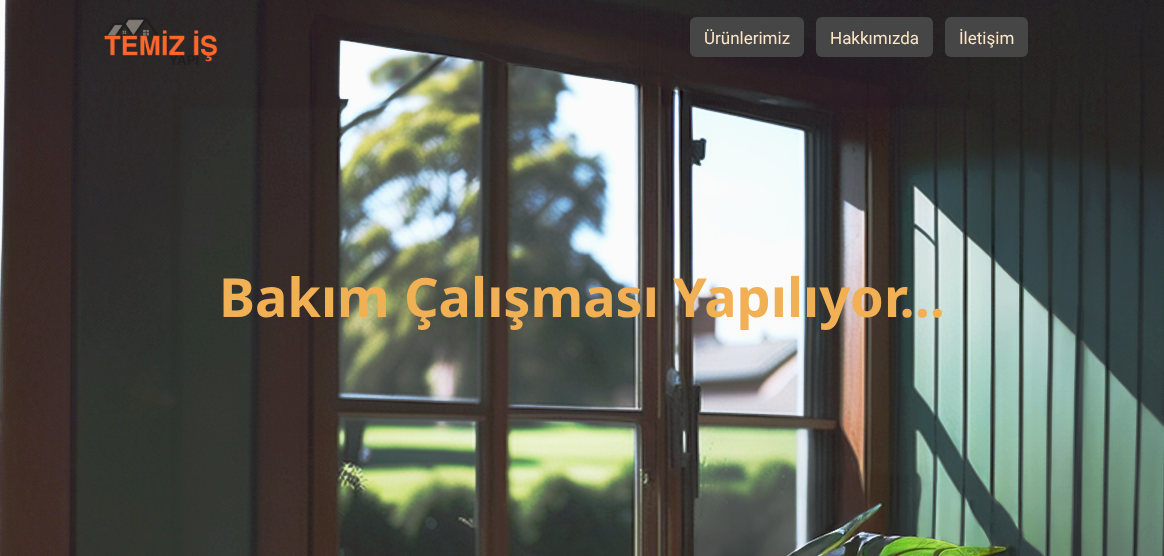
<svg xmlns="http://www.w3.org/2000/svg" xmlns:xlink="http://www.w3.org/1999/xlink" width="1164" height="556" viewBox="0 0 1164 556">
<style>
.cls-1{font:17px Roboto;fill:#fde6c6}
.cls-2{font:bold 54.1px Noto Sans;fill:#f1b053}
</style>
<rect width="100%" height="100%" fill="#ffffff"/>
<image xlink:href="image1.png" x="0" y="0" width="1164" height="556"/>
<image xlink:href="image0.png" x="104" y="17" width="114" height="48"/>
<rect fill="#464646" x="690" y="17" width="114" height="40" rx="6"/>
<rect fill="#464646" x="816" y="17" width="117" height="40" rx="6"/>
<rect fill="#464646" x="945" y="17" width="83" height="40" rx="6"/>
<text class="cls-1" x="704" y="44">Ürünlerimiz</text>
<text class="cls-1" x="830" y="44">Hakkımızda</text>
<text class="cls-1" x="959" y="44">İletişim</text>
<text class="cls-2" x="219" y="317">Bakım Çalışması Yapılıyor...</text>
</svg>
